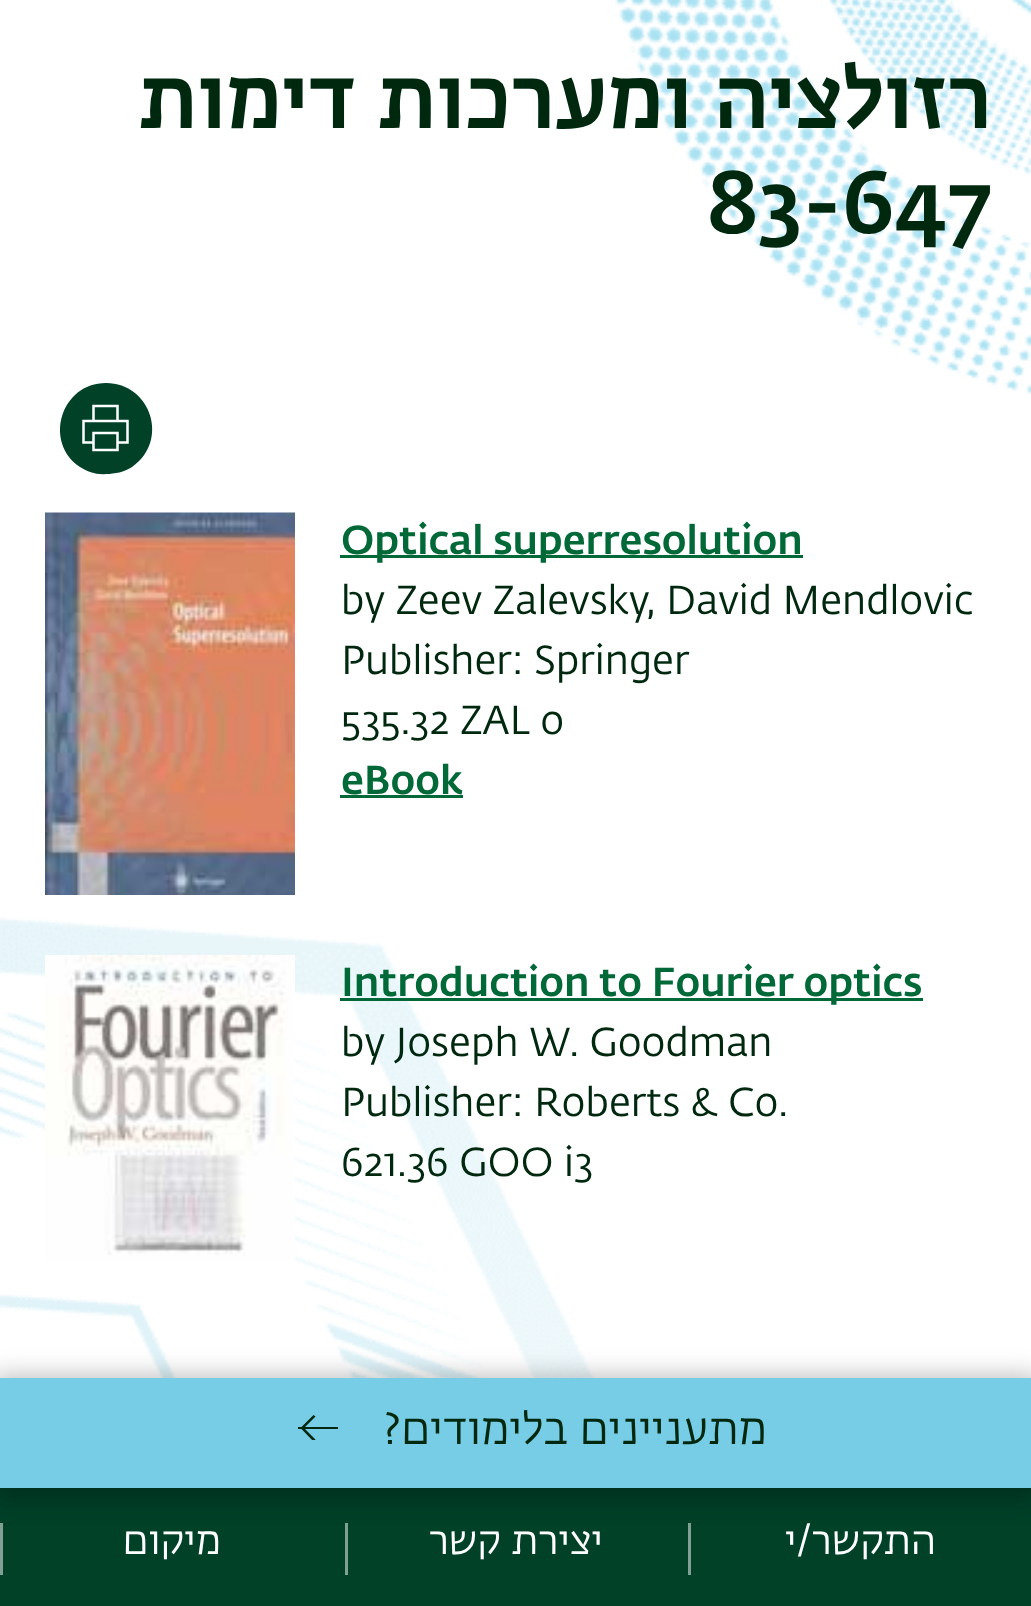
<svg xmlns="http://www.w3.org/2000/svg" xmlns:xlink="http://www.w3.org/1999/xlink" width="1031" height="1606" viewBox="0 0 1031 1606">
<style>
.cls-1{font:500 87.5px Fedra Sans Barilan;direction:rtl;fill:#00280f}
.cls-2{font:500 87.5px Fedra Sans Barilan;fill:#00280f}
.cls-3{font:500 40px Fedra Sans Barilan;fill:#006937}
.cls-4{font:40px Fedra Sans Barilan;fill:#00280f}
.cls-5{font:45px Fedra Sans Barilan;direction:rtl;fill:#00280f}
.cls-6{font:40px Fedra Sans Barilan;direction:rtl;fill:#ffffff}
</style>
<defs>
<clipPath id="clip1"><rect x="298" y="1413" width="40" height="27"/></clipPath>
</defs>
<rect width="100%" height="100%" fill="#ffffff"/>
<image xlink:href="image0.png" x="615" y="0" width="416" height="395"/>
<path fill="#004128" d="M106 383C151 383 170 441 132 467C124 472 115 474 106 474C97 475 88 472 80 467C43 442 61 383 106 383Z"/>
<path fill="none" stroke="#ffffff" stroke-width="2.5" stroke-linecap="square" d="M117.5 433V450H93.5V433ZM117.5 406V421H93.5V406ZM93.5 442.5H83.5V421H127.5V442.5H117.5"/>
<image xlink:href="image1.png" x="45" y="512" width="250" height="383"/>
<rect fill="#006937" x="340" y="555" width="463" height="3"/>
<rect fill="#006937" x="340" y="795" width="123" height="3"/>
<image xlink:href="image3.png" x="0" y="917" width="594" height="461"/>
<image xlink:href="image2.png" x="45" y="955" width="250" height="305"/>
<rect fill="#006937" x="340" y="998" width="583" height="3"/>
<rect fill="#004128" x="0" y="1488" width="1031" height="118"/>
<rect fill="#80a094" x="0" y="1523" width="3" height="52"/>
<rect fill="#80a094" x="345" y="1523" width="3" height="52"/>
<rect fill="#80a094" x="688" y="1523" width="3" height="52"/>
<rect fill="#000000" fill-opacity="0.25" filter="blur(12.5px)" x="-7" y="1375" width="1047" height="125"/>
<rect fill="#78cde6" x="0" y="1378" width="1031" height="110"/>
<rect fill="#00280f" x="298" y="1427" width="4" height="2"/>
<g clip-path="url(#clip1)">
<path fill="#00280f" d="M313.5 1441.5L315.5 1439.5L305 1429H338V1427H305L315.5 1416.5L313.5 1415L300.5 1428Z"/>
</g>
<text class="cls-1" x="992" y="128">רזולציה ומערכות דימות</text>
<text class="cls-2" x="707" y="233">83-647</text>
<text class="cls-3" x="341" y="554">Optical superresolution</text>
<text class="cls-4"><tspan x="341" y="614">by Zeev Zalevsky, David Mendlovic</tspan><tspan x="341" y="674">Publisher: Springer</tspan><tspan x="341" y="734">535.32 ZAL o</tspan></text>
<text class="cls-3" x="341" y="794">eBook</text>
<text class="cls-3" x="341" y="996">Introduction to Fourier optics</text>
<text class="cls-4"><tspan x="341" y="1056">by Joseph W. Goodman</tspan><tspan x="341" y="1116">Publisher: Roberts &amp; Co.</tspan><tspan x="341" y="1176">621.36 GOO i3</tspan></text>
<text class="cls-5" x="767" y="1444">מתעניינים בלימודים?</text>
<text class="cls-6" x="221" y="1554">מיקום</text>
<text class="cls-6" x="603" y="1554">יצירת קשר</text>
<text class="cls-6" x="936" y="1554">התקשר/י</text>
</svg>
